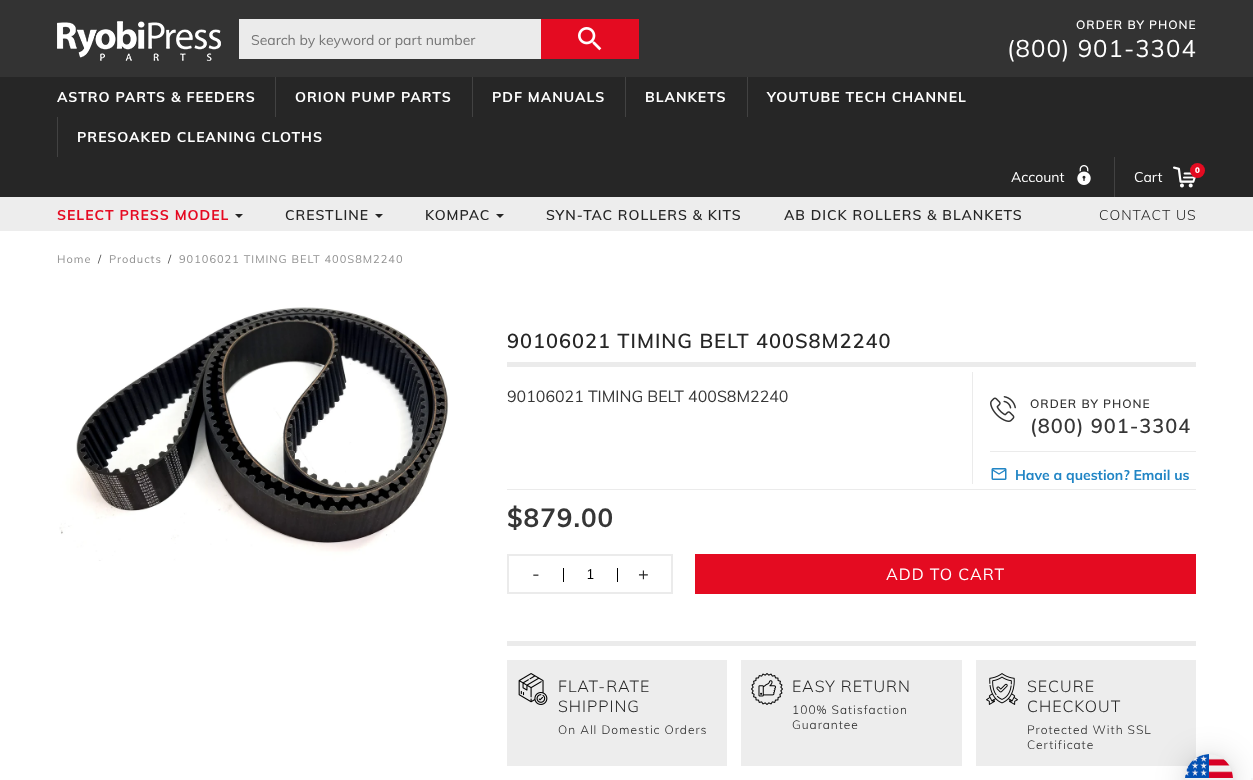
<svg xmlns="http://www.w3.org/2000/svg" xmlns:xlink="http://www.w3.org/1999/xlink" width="1253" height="780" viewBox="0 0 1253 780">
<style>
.cls-1{font:14px Muli;fill:#757575}
.cls-2{font:600 12px Muli;letter-spacing:1px;fill:#ffffff}
.cls-3{font:24px Muli;letter-spacing:1px;fill:#ffffff}
.cls-4{font:bold 14px Muli;letter-spacing:1px;fill:#ffffff}
.cls-5{font:14px Muli;fill:#ffffff}
.cls-6{font:900 8px Muli;fill:#ffffff}
.cls-7{font:bold 14px Muli;letter-spacing:1px;fill:#e50921}
.cls-8{font:600 14px Muli;letter-spacing:1px;fill:#262626}
.cls-9{font:300 14px Muli;letter-spacing:1px;fill:#262626}
.cls-10{font:11px Muli;letter-spacing:1px;fill:#919191}
.cls-11{font:11px Muli;letter-spacing:1px;fill:#4a4a4a}
.cls-12{font:600 20px Muli;letter-spacing:1px;fill:#262626}
.cls-13{font:16px Muli;fill:#363636}
.cls-14{font:600 12px Muli;letter-spacing:1px;fill:#363636}
.cls-15{font:600 20px Muli;letter-spacing:1px;fill:#363636}
.cls-16{font:bold 14px Muli;fill:#2185c5}
.cls-17{font:bold 26px Muli;letter-spacing:1px;fill:#363636}
.cls-18{font:18px Muli;fill:#262626}
.cls-19{font:14px Muli;fill:#000000}
.cls-20{font:16px Muli;letter-spacing:1px;fill:#ffffff}
.cls-21{font:300 16px Muli;letter-spacing:1px;fill:#262626}
.cls-22{font:300 12px Muli;letter-spacing:1px;fill:#262626}
</style>
<rect width="100%" height="100%" fill="#ffffff"/>
<rect fill="#333333" x="0" y="0" width="1253" height="77"/>
<image xlink:href="image0.png" x="57" y="21" width="164" height="40"/>
<rect fill="#ebebeb" x="239" y="19" width="302" height="40"/>
<rect fill="#e40b21" x="541" y="19" width="98" height="40"/>
<image xlink:href="image1.png" x="578" y="27" width="24" height="24"/>
<rect fill="#262626" x="0" y="77" width="1253" height="120"/>
<rect fill="#424242" x="275" y="77" width="1" height="40"/>
<rect fill="#424242" x="472" y="77" width="1" height="40"/>
<rect fill="#424242" x="625" y="77" width="1" height="40"/>
<rect fill="#424242" x="747" y="77" width="1" height="40"/>
<rect fill="#424242" x="57" y="117" width="1" height="40"/>
<image xlink:href="image2.png" x="1077" y="165" width="14" height="20"/>
<rect fill="#424242" x="1114" y="157" width="1" height="40"/>
<image xlink:href="image3.png" x="1173" y="166" width="23" height="22"/>
<circle fill="#e40b21" cx="1197.5" cy="170.5" r="7.5"/>
<rect fill="#ededed" x="0" y="197" width="1253" height="34"/>
<path fill="#262626" d="M235 214H243L239 218Z"/>
<path fill="#262626" d="M375 214H383L379 218Z"/>
<path fill="#262626" d="M496 214H504L500 218Z"/>
<image xlink:href="image4.png" x="59" y="307" width="390" height="254"/>
<rect fill="#ebebeb" x="507" y="362" width="689" height="5"/>
<rect fill="#ebebeb" x="507" y="489" width="689" height="1"/>
<rect fill="#ebebeb" x="972" y="372" width="1" height="112"/>
<rect fill="#ebebeb" x="990" y="451" width="206" height="1"/>
<image xlink:href="image5.png" x="990" y="396" width="26" height="26"/>
<image xlink:href="image6.png" x="991" y="468" width="16" height="12"/>
<rect fill="none" stroke="#ebebeb" stroke-width="2" x="508" y="555" width="164" height="38"/>
<rect fill="#000000" x="563" y="568" width="1" height="14"/>
<rect fill="#000000" x="617" y="568" width="1" height="14"/>
<rect fill="#e40b21" x="695" y="554" width="501" height="40"/>
<rect fill="#ebebeb" x="507" y="641" width="689" height="5"/>
<rect fill="#ededed" x="507" y="660" width="220" height="106"/>
<image xlink:href="image7.png" x="518" y="673" width="30" height="32"/>
<rect fill="#ededed" x="741" y="660" width="221" height="106"/>
<image xlink:href="image8.png" x="751" y="673" width="32" height="32"/>
<rect fill="#ededed" x="976" y="660" width="220" height="106"/>
<image xlink:href="image9.png" x="986" y="673" width="32" height="32"/>
<rect fill="#000000" fill-opacity="0.16" filter="blur(16px)" x="1185" y="756" width="48" height="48" rx="24"/>
<rect fill="#000000" fill-opacity="0.06" filter="blur(3px)" x="1185" y="755" width="48" height="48" rx="24"/>
<image xlink:href="image10.png" x="1185" y="754" width="48" height="26"/>
<rect fill="#f5f5f5" x="1251" y="778" width="2" height="2"/>
<text class="cls-1" x="251" y="45">Search by keyword or part number</text>
<text class="cls-2" x="1076" y="29">ORDER BY PHONE</text>
<text class="cls-3" x="1007" y="57">(800) 901-3304</text>
<text class="cls-4" x="57" y="102">ASTRO PARTS &amp; FEEDERS</text>
<text class="cls-4" x="295" y="102">ORION PUMP PARTS</text>
<text class="cls-4" x="492" y="102">PDF MANUALS</text>
<text class="cls-4" x="645" y="102">BLANKETS</text>
<text class="cls-4" x="767" y="102">YOUTUBE TECH CHANNEL</text>
<text class="cls-4" x="77" y="142">PRESOAKED CLEANING CLOTHS</text>
<text class="cls-5" x="1011" y="182">Account</text>
<text class="cls-5" x="1134" y="182">Cart</text>
<text class="cls-6" x="1195" y="173">0</text>
<text class="cls-7" x="57" y="220">SELECT PRESS MODEL</text>
<text class="cls-8" x="285" y="220">CRESTLINE</text>
<text class="cls-8" x="425" y="220">KOMPAC</text>
<text class="cls-8" x="546" y="220">SYN-TAC ROLLERS &amp; KITS</text>
<text class="cls-8" x="784" y="220">AB DICK ROLLERS &amp; BLANKETS</text>
<text class="cls-9" x="1099" y="220">CONTACT US</text>
<text class="cls-10" x="57" y="263">Home</text>
<text class="cls-11" x="98" y="263">/</text>
<text class="cls-10" x="109" y="263">Products</text>
<text class="cls-11" x="168" y="263">/</text>
<text class="cls-10" x="179" y="263">90106021 TIMING BELT 400S8M2240</text>
<text class="cls-12" x="507" y="348">90106021 TIMING BELT 400S8M2240</text>
<text class="cls-13" x="507" y="402">90106021 TIMING BELT 400S8M2240</text>
<text class="cls-14" x="1030" y="408">ORDER BY PHONE</text>
<text class="cls-15" x="1030" y="433">(800) 901-3304</text>
<text class="cls-16" x="1015" y="480">Have a question? Email us</text>
<text class="cls-17" x="507" y="527">$879.00</text>
<text class="cls-18" x="532" y="580">-</text>
<text class="cls-19" x="586" y="579">1</text>
<text class="cls-18" x="638" y="580">+</text>
<text class="cls-20" x="886" y="580">ADD TO CART</text>
<text class="cls-21"><tspan x="558" y="692">FLAT-RATE</tspan><tspan x="558" y="712">SHIPPING</tspan></text>
<text class="cls-22" x="558" y="734">On All Domestic Orders</text>
<text class="cls-21" x="792" y="692">EASY RETURN</text>
<text class="cls-22"><tspan x="792" y="714">100% Satisfaction</tspan><tspan x="792" y="729">Guarantee</tspan></text>
<text class="cls-21"><tspan x="1027" y="692">SECURE</tspan><tspan x="1027" y="712">CHECKOUT</tspan></text>
<text class="cls-22"><tspan x="1027" y="734">Protected With SSL</tspan><tspan x="1027" y="749">Certificate</tspan></text>
</svg>
